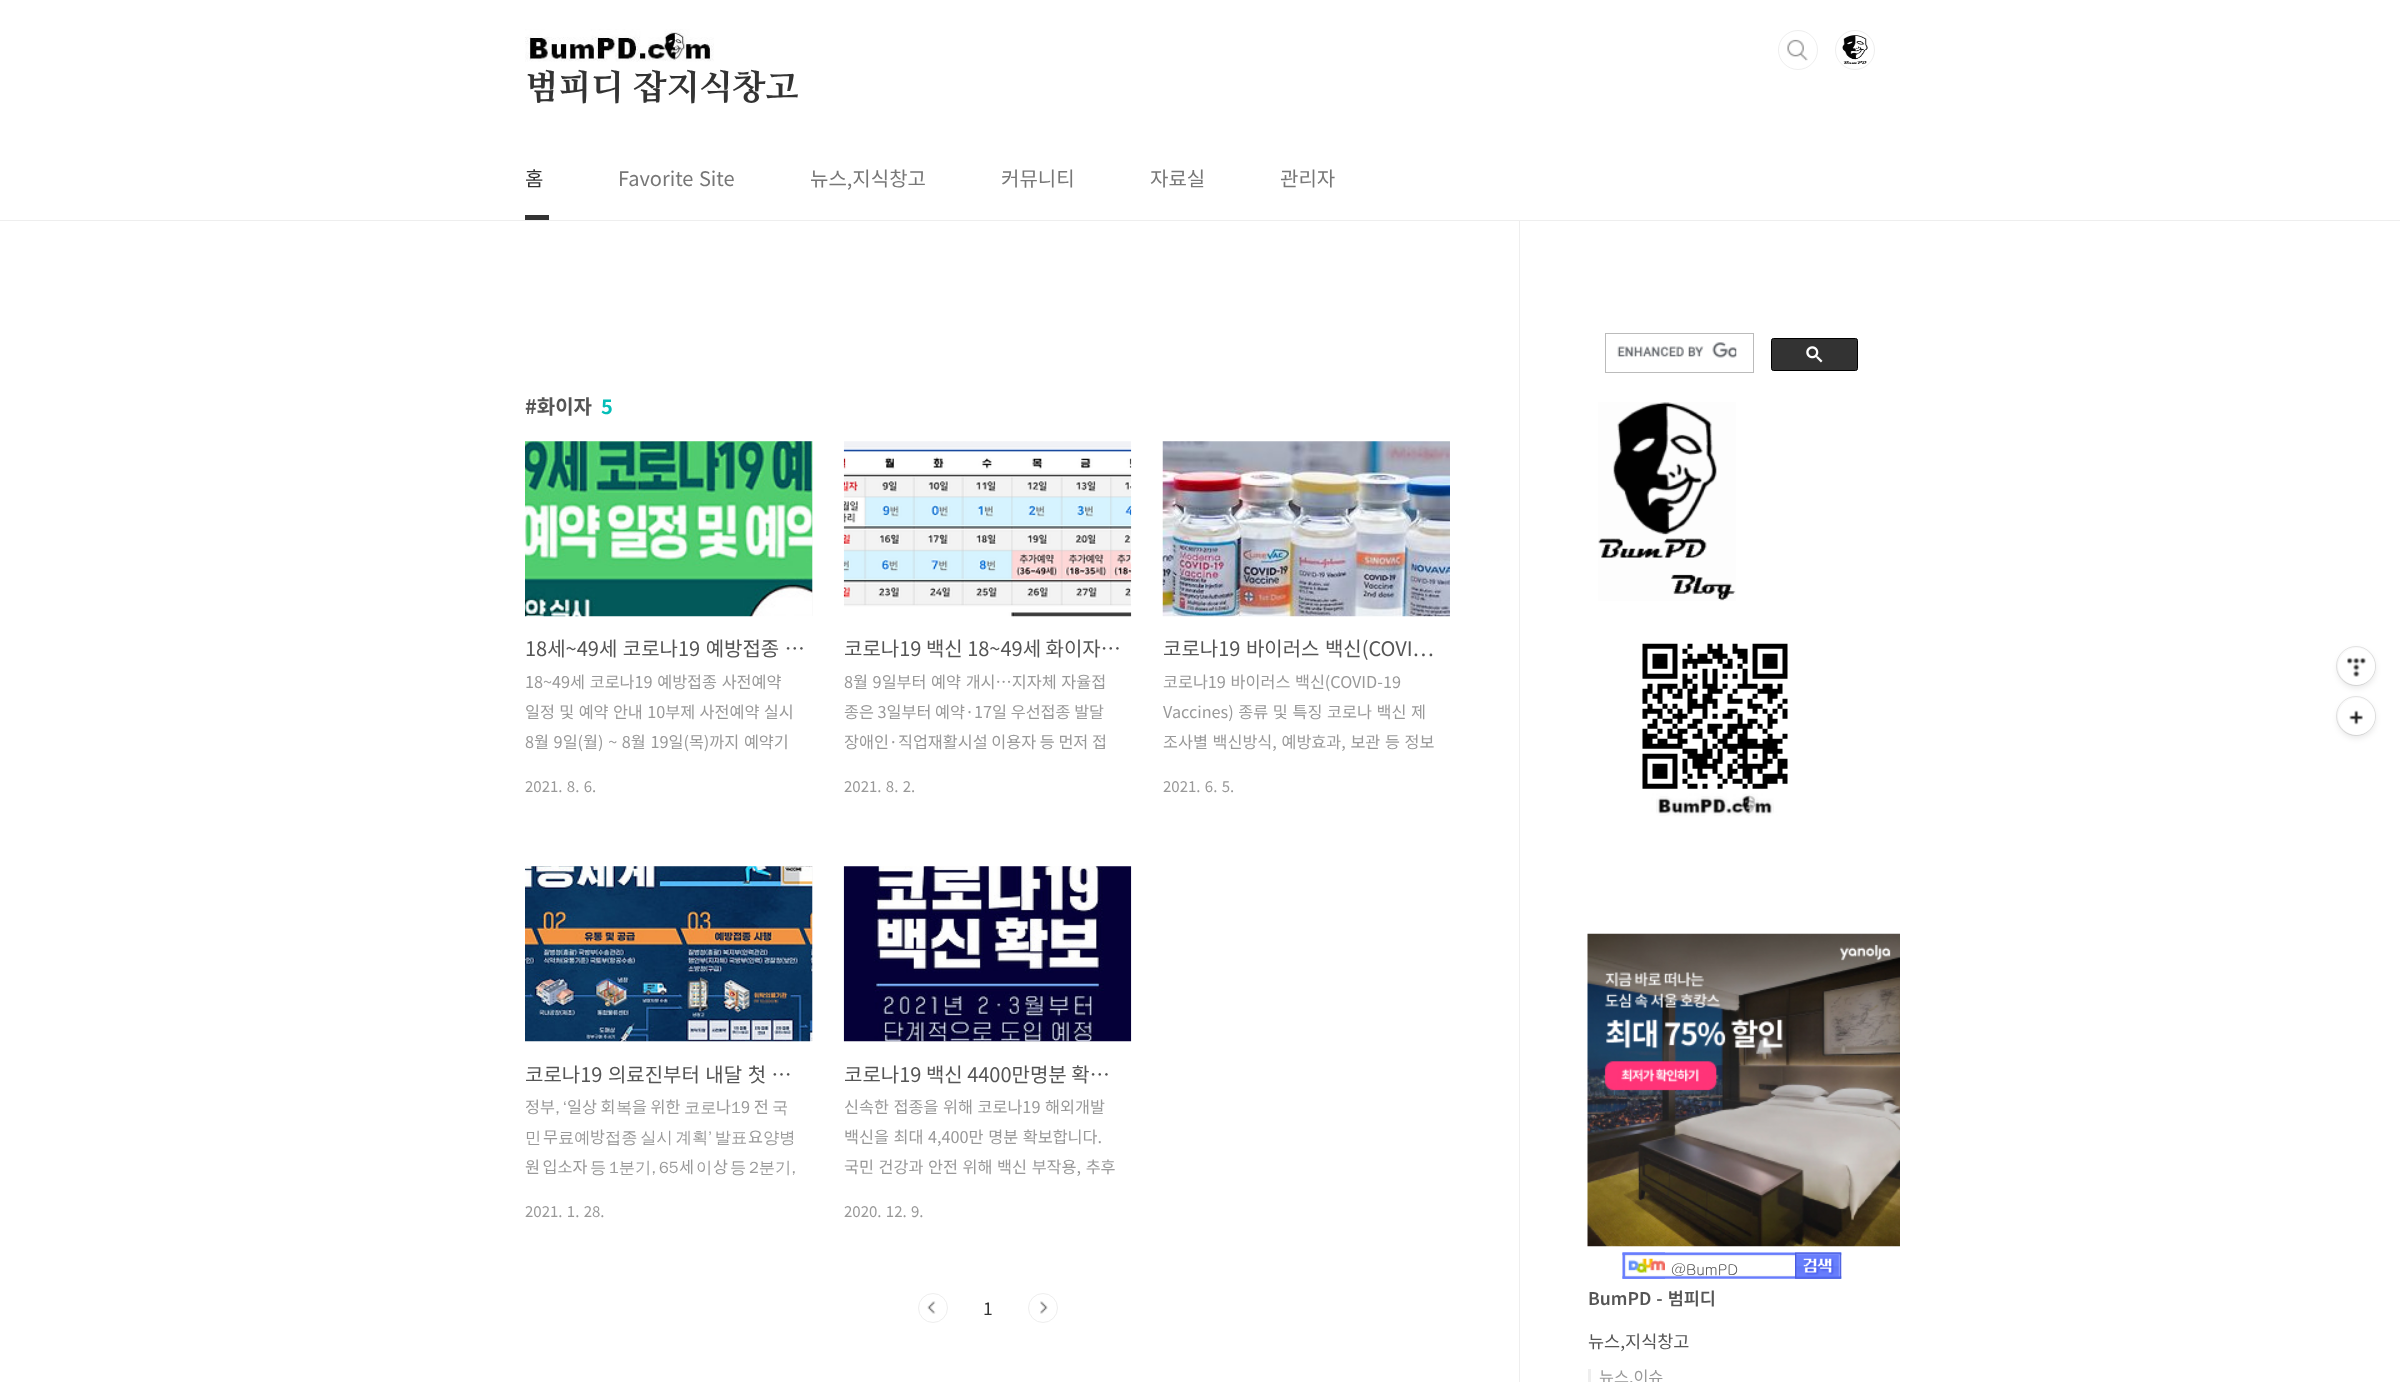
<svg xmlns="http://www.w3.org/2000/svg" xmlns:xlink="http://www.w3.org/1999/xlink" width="2400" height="1382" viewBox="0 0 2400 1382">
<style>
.cls-1{font:800 35px NanumMyeongjo;letter-spacing:-0.25px;fill:#333333}
.cls-2{font:20px Noto Sans KR;fill:#333333}
.cls-3{font:20px Noto Sans KR;fill:#777777}
.cls-4{font:bold 20px Noto Sans KR;fill:#555555}
.cls-5{font:bold 20px Noto Sans KR;fill:#04beb8}
.cls-6{font:20px Noto Sans KR;fill:#555555}
.cls-7{font:16.25px Noto Sans KR;fill:#999999}
.cls-8{font:15px Noto Sans KR;fill:#999999}
.cls-9{font:500 16.25px WenQuanYi Zen Hei;fill:#999999}
.cls-10{font:17.5px Noto Sans KR;fill:#333333}
.cls-11{font:15px Gulim;fill:#555555}
.cls-12{font:600 17.5px Noto Sans KR;fill:#555555}
.cls-13{font:17.5px Noto Sans KR;fill:#555555}
</style>
<rect width="100%" height="100%" fill="#ffffff"/>
<rect fill="#eeeeee" x="0" y="220" width="2400" height="1"/>
<rect fill="none" stroke="#eeeeee" x="1779.5" y="31.5" width="36" height="37" rx="18"/>
<circle fill="#ffffff" cx="1798" cy="50" r="20"/>
<image xlink:href="image0.png" x="1787" y="39" width="21" height="22"/>
<circle fill="none" stroke="#eeeeee" cx="1798" cy="50" r="19.5"/>
<circle fill="none" stroke="#eeeeee" cx="1855" cy="50" r="19.5"/>
<image xlink:href="image1.png" x="1842" y="35" width="26" height="29"/>
<image xlink:href="image2.png" x="525" y="29" width="189" height="33"/>
<rect fill="#333333" x="525" y="215" width="24" height="5"/>
<rect fill="#f8f8f8" x="525" y="441" width="288" height="175"/>
<image xlink:href="image3.png" x="525" y="441" width="288" height="176"/>
<image xlink:href="image4.png" x="843" y="441" width="289" height="176"/>
<image xlink:href="image5.png" x="1162" y="441" width="288" height="176"/>
<rect fill="#f8f8f8" x="525" y="866" width="288" height="175"/>
<image xlink:href="image6.png" x="525" y="866" width="288" height="176"/>
<image xlink:href="image7.png" x="843" y="866" width="289" height="176"/>
<image xlink:href="image8.png" x="927" y="1301" width="9" height="13"/>
<circle fill="none" stroke="#eeeeee" cx="933" cy="1308" r="14.5"/>
<image xlink:href="image9.png" x="1040" y="1301" width="8" height="13"/>
<circle fill="none" stroke="#eeeeee" cx="1043" cy="1308" r="14.5"/>
<rect fill="#eeeeee" x="1519" y="221" width="1" height="1161"/>
<rect fill="none" stroke="#bbbbbb" x="1605.5" y="333.5" width="148" height="39"/>
<image xlink:href="image10.png" x="1617" y="342" width="120" height="16"/>
<rect fill="#333333" stroke="#000000" x="1771.5" y="338.5" width="86" height="32" rx="2"/>
<image xlink:href="image11.png" x="1806" y="346" width="17" height="17"/>
<image xlink:href="image12.png" x="1598" y="402" width="138" height="199"/>
<image xlink:href="image13.png" x="1642" y="643" width="146" height="173"/>
<image xlink:href="image14.png" x="1587" y="933" width="313" height="314"/>
<image xlink:href="image15.png" x="1622" y="1252" width="220" height="27"/>
<image xlink:href="image16.png" x="1622" y="1252" width="43" height="27"/>
<image xlink:href="image17.png" x="1795" y="1252" width="47" height="27"/>
<rect fill="#eeeeee" x="1588" y="1369" width="3" height="13"/>
<rect fill="#000000" fill-opacity="0.1" filter="blur(3px)" x="2338" y="650" width="37" height="38" rx="18.5"/>
<circle fill="none" stroke="#000000" stroke-opacity="0.1" cx="2356" cy="666" r="19.5"/>
<circle fill="#ffffff" cx="2356.5" cy="666.5" r="18.5"/>
<image xlink:href="image18.png" x="2347" y="657" width="19" height="20"/>
<rect fill="#000000" fill-opacity="0.1" filter="blur(3px)" x="2338" y="700" width="37" height="38" rx="18.5"/>
<circle fill="none" stroke="#000000" stroke-opacity="0.1" cx="2356" cy="716" r="19.5"/>
<circle fill="#ffffff" cx="2356.5" cy="716.5" r="18.5"/>
<image xlink:href="image19.png" x="2349" y="710" width="14" height="15"/>
<text class="cls-1" x="525" y="99">범피디 잡지식창고</text>
<text class="cls-2" x="525" y="186">홈</text>
<text class="cls-3" x="618" y="186" word-spacing="1">Favorite Site</text>
<text class="cls-3" x="810" y="186">뉴스,지식창고</text>
<text class="cls-3" x="1001" y="186">커뮤니티</text>
<text class="cls-3" x="1150" y="186">자료실</text>
<text class="cls-3" x="1280" y="186">관리자</text>
<text class="cls-4" x="525" y="414">#화이자</text>
<text class="cls-5" x="601" y="414">5</text>
<text class="cls-6" x="525" y="656" word-spacing="1">18세~49세 코로나19 예방접종 …</text>
<text class="cls-7"><tspan x="525" y="688" word-spacing="1">18~49세 코로나19 예방접종 사전예약</tspan><tspan x="525" y="718" word-spacing="0.75">일정 및 예약 안내 10부제 사전예약 실시</tspan><tspan x="525" y="748" word-spacing="1">8월 9일(월) ~ 8월 19일(목)까지 예약기</tspan></text>
<text class="cls-8" x="525" y="792" word-spacing="1">2021. 8. 6.</text>
<text class="cls-6" x="844" y="656">코로나19 백신 18~49세 화이자…</text>
<text class="cls-7"><tspan x="844" y="688" word-spacing="1">8월 9일부터 예약 개시…지자체 자율접</tspan><tspan x="844" y="718">종은 3일부터 예약·17일 우선접종 발달</tspan><tspan x="844" y="748">장애인·직업재활시설 이용자 등 먼저 접</tspan></text>
<text class="cls-8" x="844" y="792" word-spacing="1">2021. 8. 2.</text>
<text class="cls-6" x="1163" y="656" word-spacing="1">코로나19 바이러스 백신(COVI…</text>
<text class="cls-7"><tspan x="1163" y="688" word-spacing="1">코로나19 바이러스 백신(COVID-19</tspan><tspan x="1163" y="718" word-spacing="1">Vaccines) 종류 및 특징 코로나 백신 제</tspan><tspan x="1163" y="748" word-spacing="1">조사별 백신방식, 예방효과, 보관 등 정보</tspan></text>
<text class="cls-8" x="1163" y="792" word-spacing="1">2021. 6. 5.</text>
<text class="cls-6" x="525" y="1082" word-spacing="1">코로나19 의료진부터 내달 첫 …</text>
<text class="cls-7" x="525" y="1113">정부</text>
<text class="cls-9" x="555" y="1113">,</text>
<text class="cls-9" x="563" y="1113">‘</text>
<text class="cls-7" x="567" y="1113">일상 회</text>
<text class="cls-9" x="616" y="1113">복</text>
<text class="cls-7" x="632" y="1113">을 위한</text>
<text class="cls-9" x="684" y="1113">코로</text>
<text class="cls-7" x="716" y="1113">나</text>
<text class="cls-9" x="731" y="1113">1</text>
<text class="cls-7" x="741" y="1113">9 전</text>
<text class="cls-9" x="772" y="1113">국</text>
<text class="cls-9" x="525" y="1143">민</text>
<text class="cls-7" x="543" y="1143">무</text>
<text class="cls-9" x="558" y="1143">료예</text>
<text class="cls-7" x="590" y="1143">방</text>
<text class="cls-9" x="605" y="1143" word-spacing="-2">접종 실시 계획’ 발표</text>
<text class="cls-7" x="748" y="1143">요</text>
<text class="cls-9" x="763" y="1143">양병</text>
<text class="cls-7" x="525" y="1173" word-spacing="-1">원 입소자</text>
<text class="cls-9" x="590" y="1173">등</text>
<text class="cls-9" x="609" y="1173">1분기,</text>
<text class="cls-9" x="659" y="1173">65</text>
<text class="cls-7" x="679" y="1173">세</text>
<text class="cls-9" x="696" y="1173">이</text>
<text class="cls-7" x="713" y="1173">상</text>
<text class="cls-9" x="730" y="1173">등</text>
<text class="cls-9" x="749" y="1173">2분기,</text>
<text class="cls-8" x="525" y="1217" word-spacing="1">2021. 1. 28.</text>
<text class="cls-6" x="844" y="1082">코로나19 백신 4400만명분 확…</text>
<text class="cls-7"><tspan x="844" y="1113" word-spacing="1">신속한 접종을 위해 코로나19 해외개발</tspan><tspan x="844" y="1143" word-spacing="1">백신을 최대 4,400만 명분 확보합니다.</tspan><tspan x="844" y="1173" word-spacing="1">국민 건강과 안전 위해 백신 부작용, 추후</tspan></text>
<text class="cls-8" x="844" y="1217" word-spacing="1">2020. 12. 9.</text>
<text class="cls-10" x="983" y="1315">1</text>
<text class="cls-11" x="1671" y="1275">@BumPD</text>
<text class="cls-12" x="1588" y="1305" word-spacing="1">BumPD - 범피디</text>
<text class="cls-13" x="1588" y="1348">뉴스,지식창고</text>
<text class="cls-7" x="1599" y="1383">뉴스,이슈</text>
</svg>
